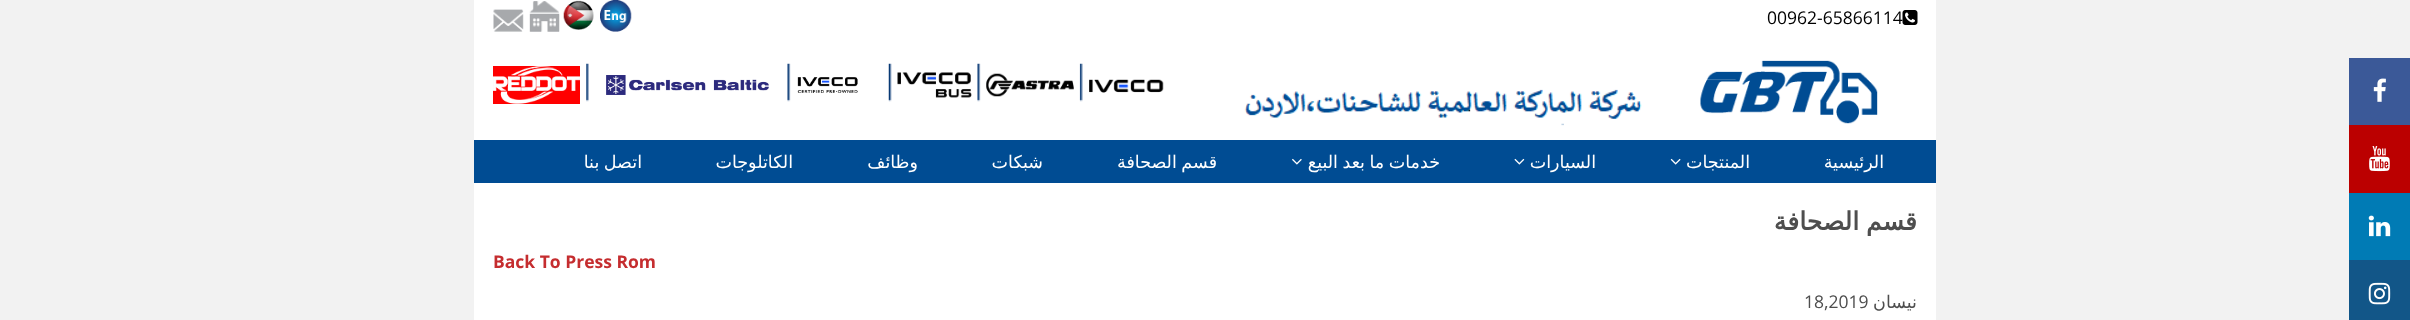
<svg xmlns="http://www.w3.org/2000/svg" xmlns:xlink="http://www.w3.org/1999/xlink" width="2410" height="320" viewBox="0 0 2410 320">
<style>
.cls-1{font:17.5px Open Sans;fill:#000000}
.cls-2{font:17.5px DejaVu Sans;direction:rtl;fill:#ffffff}
.cls-3{font:bold 25px DejaVu Sans;direction:rtl;fill:#4e4e4e}
.cls-4{font:bold 17.5px Open Sans;fill:#c52d2f}
.cls-5{font:17.5px DejaVu Sans;direction:rtl;fill:#4e4e4e}
.cls-6{font:17.5px Open Sans;fill:#4e4e4e}
</style>
<rect width="100%" height="100%" fill="#f2f2f2"/>
<rect fill="#3b5998" x="2349" y="58" width="61" height="67"/>
<image xlink:href="image0.png" x="2373" y="78" width="13" height="24"/>
<rect fill="#bb0000" x="2349" y="125" width="61" height="68"/>
<image xlink:href="image1.png" x="2369" y="146" width="21" height="26"/>
<rect fill="#007bb5" x="2349" y="193" width="61" height="67"/>
<image xlink:href="image2.png" x="2368" y="215" width="23" height="22"/>
<rect fill="#125688" x="2349" y="260" width="61" height="60"/>
<image xlink:href="image3.png" x="2368" y="282" width="23" height="23"/>
<rect fill="#ffffff" x="474" y="0" width="1462" height="140"/>
<image xlink:href="image4.png" x="1902" y="10" width="16" height="15"/>
<image xlink:href="image5.png" x="600" y="0" width="32" height="32"/>
<image xlink:href="image6.png" x="563" y="0" width="31" height="30"/>
<image xlink:href="image7.png" x="529" y="1" width="31" height="31"/>
<image xlink:href="image8.png" x="493" y="9" width="31" height="23"/>
<image xlink:href="image9.png" x="1700" y="60" width="178" height="64"/>
<image xlink:href="image10.png" x="1244" y="89" width="398" height="37"/>
<image xlink:href="image11.png" x="1089" y="79" width="75" height="14"/>
<image xlink:href="image12.png" x="1079" y="63" width="4" height="39"/>
<image xlink:href="image13.png" x="986" y="73" width="88" height="24"/>
<image xlink:href="image14.png" x="977" y="63" width="4" height="39"/>
<image xlink:href="image15.png" x="897" y="72" width="75" height="26"/>
<image xlink:href="image16.png" x="888" y="63" width="4" height="39"/>
<image xlink:href="image17.png" x="797" y="77" width="61" height="16"/>
<image xlink:href="image14.png" x="787" y="63" width="4" height="39"/>
<image xlink:href="image18.png" x="606" y="75" width="163" height="20"/>
<image xlink:href="image19.png" x="586" y="63" width="3" height="39"/>
<rect fill="#ff0000" x="493" y="66" width="87" height="38"/>
<image xlink:href="image20.png" x="493" y="66" width="87" height="38"/>
<rect fill="#004c93" x="474" y="140" width="1462" height="43"/>
<image xlink:href="image21.png" x="1670" y="158" width="11" height="7"/>
<image xlink:href="image22.png" x="1514" y="158" width="11" height="7"/>
<image xlink:href="image23.png" x="1292" y="158" width="10" height="7"/>
<rect fill="#ffffff" x="474" y="183" width="1462" height="137"/>
<text class="cls-1" x="1767" y="24">00962-65866114</text>
<text class="cls-2" x="1884" y="168">الرئيسية</text>
<text class="cls-2" x="1750" y="168">المنتجات</text>
<text class="cls-2" x="1596" y="168">السيارات</text>
<text class="cls-2" x="1440" y="168" word-spacing="-1">خدمات ما بعد البيع</text>
<text class="cls-2" x="1217" y="168" word-spacing="-1">قسم الصحافة</text>
<text class="cls-2" x="1043" y="168">شبكات</text>
<text class="cls-2" x="918" y="168">وظائف</text>
<text class="cls-2" x="793" y="168">الكاتلوجات</text>
<text class="cls-2" x="642" y="168" word-spacing="-1">اتصل بنا</text>
<text class="cls-3" x="1917" y="230" word-spacing="-1">قسم الصحافة</text>
<text class="cls-4" x="493" y="268">Back To Press Rom</text>
<text class="cls-5" x="1917" y="308">نيسان</text>
<text class="cls-6" x="1804" y="308">18,2019</text>
</svg>
